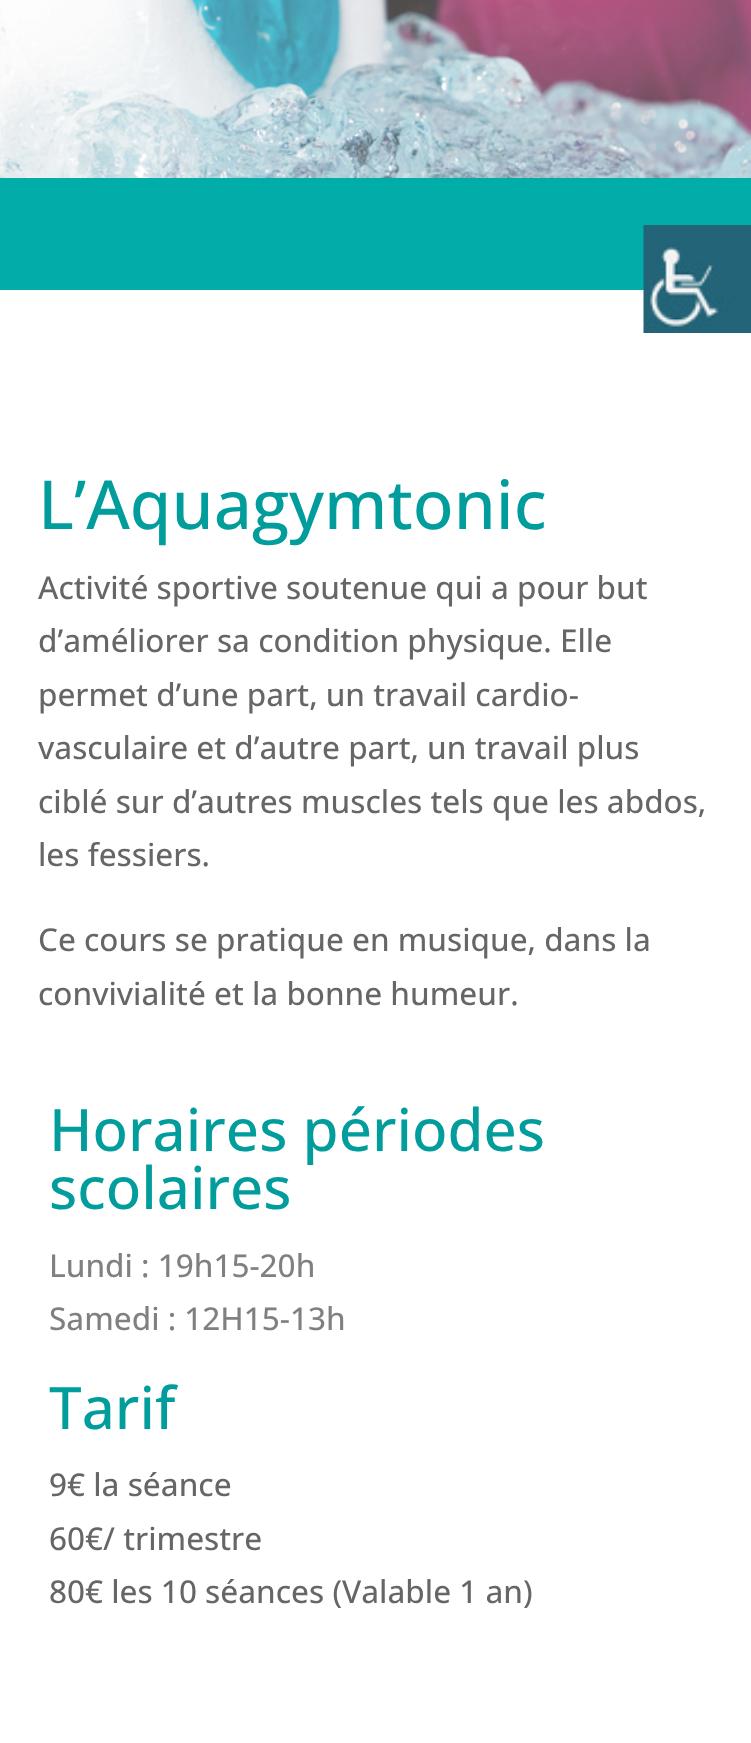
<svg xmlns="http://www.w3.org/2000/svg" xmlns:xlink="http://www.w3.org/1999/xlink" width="751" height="1743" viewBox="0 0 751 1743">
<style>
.cls-1{font:500 67.5px Open Sans;fill:#009d9c}
.cls-2{font:500 31.5px Open Sans;fill:#666666}
.cls-3{font:500 58.5px Open Sans;fill:#009d9c}
.cls-4{font:500 31.5px Open Sans;fill:#808080}
</style>
<rect width="100%" height="100%" fill="#ffffff"/>
<rect fill="#00ada9" x="0" y="178" width="751" height="112"/>
<image xlink:href="image0.png" x="643" y="225" width="108" height="108"/>
<image xlink:href="image1.png" x="0" y="0" width="751" height="178"/>
<text class="cls-1" x="38" y="529">L’Aquagymtonic</text>
<text class="cls-2"><tspan x="38" y="599">Activité sportive soutenue qui a pour but</tspan><tspan x="38" y="652">d’améliorer sa condition physique. Elle</tspan><tspan x="38" y="706">permet d’une part, un travail cardio-</tspan><tspan x="38" y="759">vasculaire et d’autre part, un travail plus</tspan><tspan x="38" y="813">ciblé sur d’autres muscles tels que les abdos,</tspan><tspan x="38" y="866">les fessiers.</tspan></text>
<text class="cls-2"><tspan x="38" y="951">Ce cours se pratique en musique, dans la</tspan><tspan x="38" y="1005">convivialité et la bonne humeur.</tspan></text>
<text class="cls-3"><tspan x="49" y="1151">Horaires périodes</tspan><tspan x="49" y="1209">scolaires</tspan></text>
<text class="cls-4"><tspan x="49" y="1277">Lundi : 19h15-20h</tspan><tspan x="49" y="1330">Samedi : 12H15-13h</tspan></text>
<text class="cls-3" x="49" y="1429">Tarif</text>
<text class="cls-2"><tspan x="49" y="1496">9€ la séance</tspan><tspan x="49" y="1550">60€/ trimestre</tspan><tspan x="49" y="1603">80€ les 10 séances (Valable 1 an)</tspan></text>
</svg>
